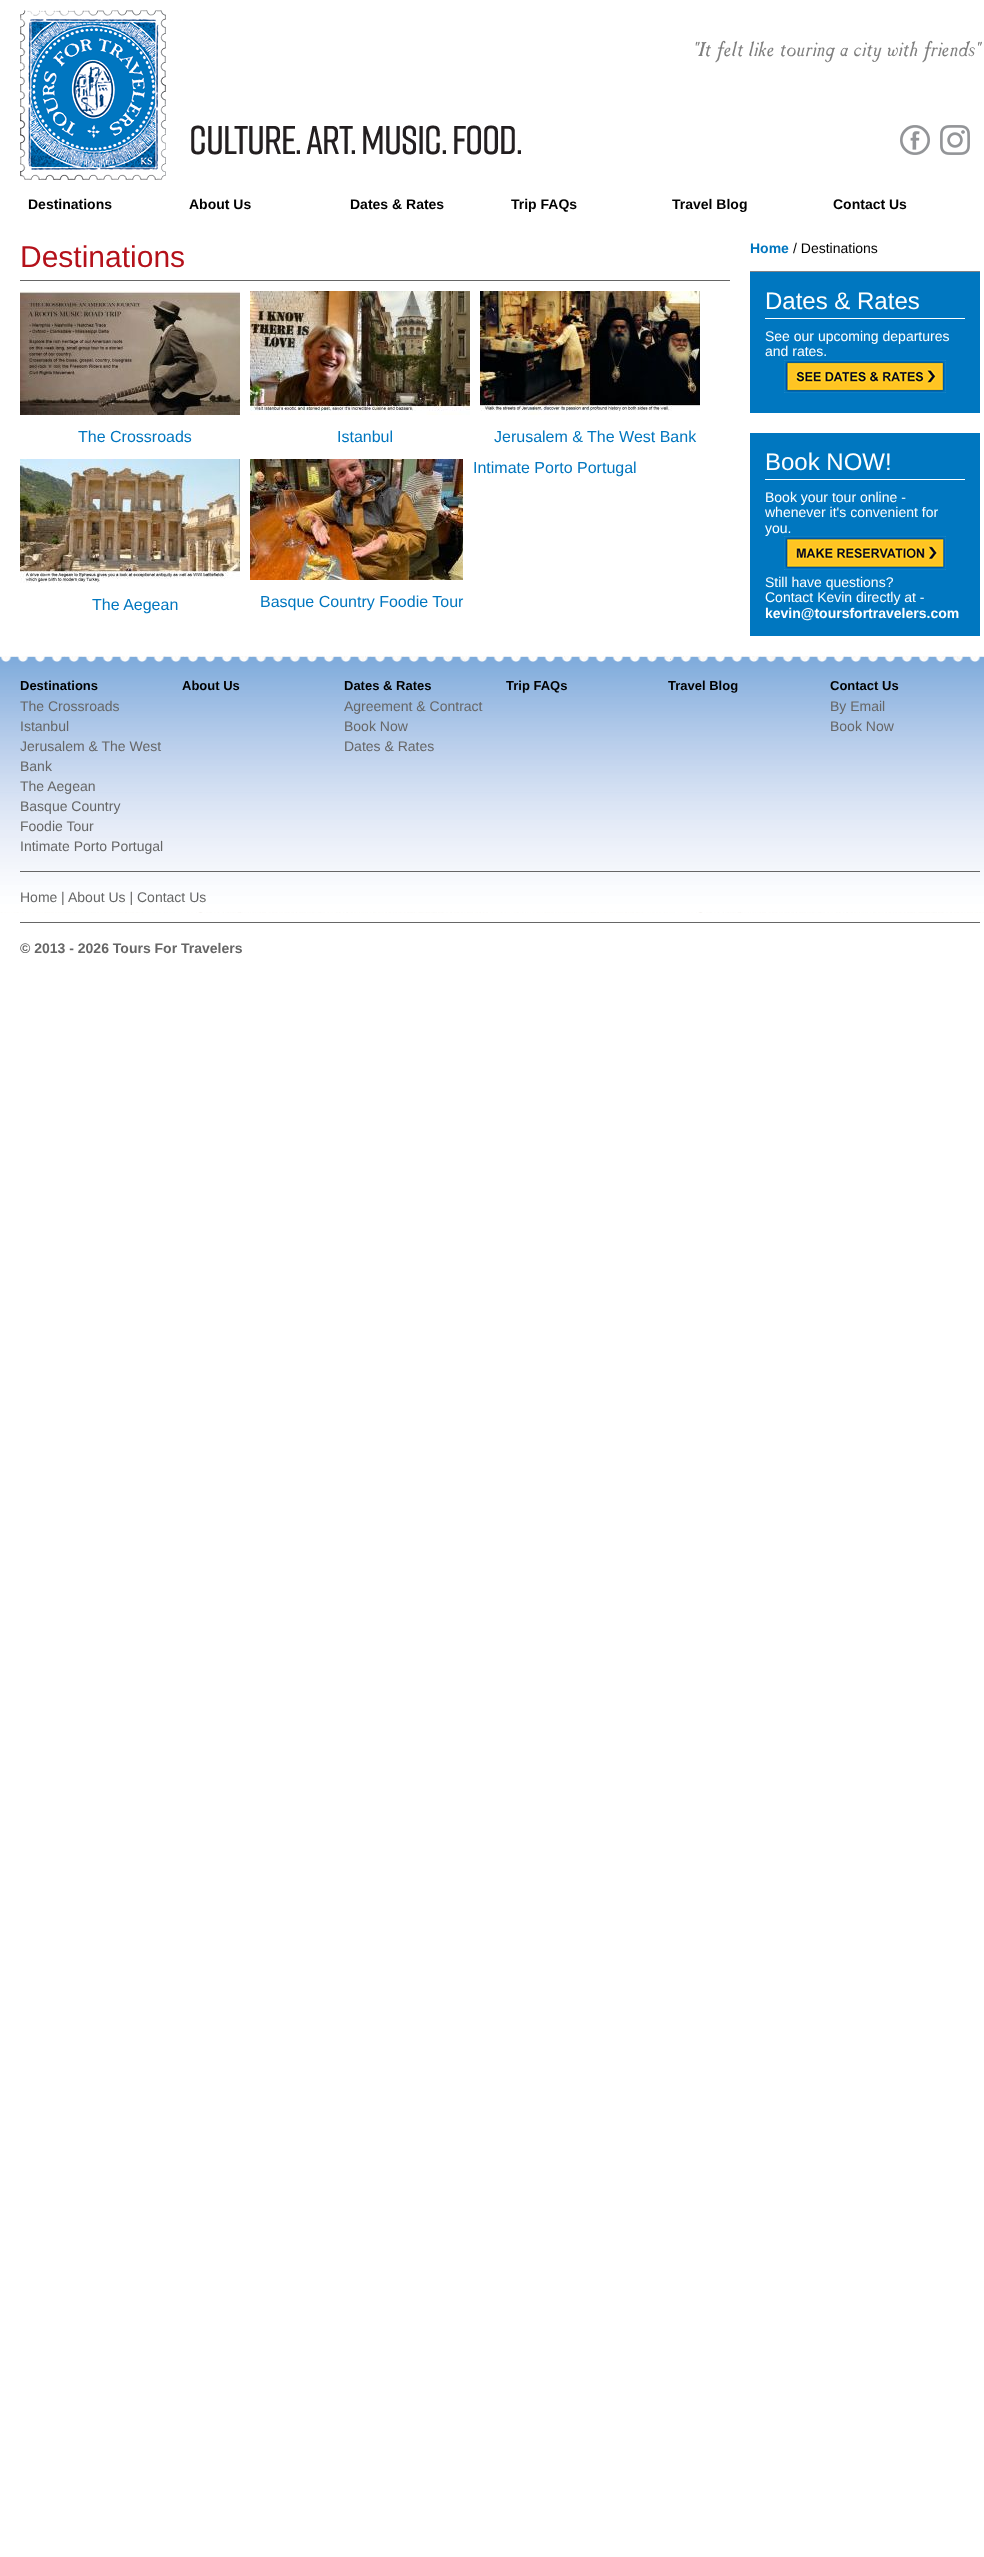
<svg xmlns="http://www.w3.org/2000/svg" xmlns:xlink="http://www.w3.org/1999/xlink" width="984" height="2557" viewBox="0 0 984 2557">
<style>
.cls-1{font:italic 20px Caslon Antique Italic;fill:#7f7f7f}
.cls-2{font:bold 14px Liberation Sans;fill:#000000}
.cls-3{font:30px Liberation Sans;fill:#b4111a}
.cls-4{font:16px Liberation Sans;fill:#0076bf}
.cls-5{font:bold 14px Liberation Sans;fill:#0076bf}
.cls-6{font:14px Liberation Sans;fill:#000000}
.cls-7{font:24px Liberation Sans;fill:#ffffff}
.cls-8{font:14px Liberation Sans;fill:#ffffff}
.cls-9{font:bold 14px Liberation Sans;fill:#ffffff}
.cls-10{font:bold 13px Liberation Sans;fill:#000000}
.cls-11{font:14px Liberation Sans;fill:#666666}
.cls-12{font:bold 14px Liberation Sans;fill:#666666}
</style>
<rect width="100%" height="100%" fill="#ffffff"/>
<image xlink:href="image0.png" x="0" y="656" width="984" height="257"/>
<image xlink:href="image1.png" x="20" y="10" width="146" height="170"/>
<image xlink:href="image2.png" x="191" y="125" width="330" height="30"/>
<image xlink:href="image3.png" x="900" y="125" width="30" height="30"/>
<image xlink:href="image4.png" x="940" y="125" width="30" height="30"/>
<rect fill="#666666" x="20" y="280" width="710" height="1"/>
<image xlink:href="image5.png" x="20" y="291" width="220" height="124"/>
<image xlink:href="image6.png" x="250" y="291" width="220" height="124"/>
<image xlink:href="image7.png" x="480" y="291" width="220" height="124"/>
<image xlink:href="image8.png" x="20" y="459" width="220" height="124"/>
<image xlink:href="image9.png" x="250" y="459" width="213" height="121"/>
<rect fill="#818285" x="750" y="271" width="230" height="1"/>
<rect fill="#0077c0" x="750" y="272" width="230" height="141"/>
<rect fill="#ffffff" x="765" y="318" width="200" height="1"/>
<image xlink:href="image10.png" x="784" y="360" width="162" height="33"/>
<rect fill="#0077c0" x="750" y="433" width="230" height="203"/>
<rect fill="#ffffff" x="765" y="479" width="200" height="1"/>
<image xlink:href="image11.png" x="784" y="536" width="162" height="34"/>
<image xlink:href="image12.png" x="0" y="656" width="984" height="257"/>
<rect fill="#666666" x="20" y="871" width="960" height="1"/>
<rect fill="#666666" x="20" y="922" width="960" height="1"/>
<text class="cls-1" x="692" y="56">"It felt like touring a city with friends"</text>
<text class="cls-2" x="28" y="209">Destinations</text>
<text class="cls-2" x="189" y="209">About Us</text>
<text class="cls-2" x="350" y="209">Dates &amp; Rates</text>
<text class="cls-2" x="511" y="209">Trip FAQs</text>
<text class="cls-2" x="672" y="209">Travel Blog</text>
<text class="cls-2" x="833" y="209">Contact Us</text>
<text class="cls-3" x="20" y="267">Destinations</text>
<text class="cls-4" x="78" y="442">The Crossroads</text>
<text class="cls-4" x="337" y="442">Istanbul</text>
<text class="cls-4" x="494" y="442">Jerusalem &amp; The West Bank</text>
<text class="cls-4" x="473" y="473">Intimate Porto Portugal</text>
<text class="cls-4" x="92" y="610">The Aegean</text>
<text class="cls-4" x="260" y="607">Basque Country Foodie Tour</text>
<text class="cls-5" x="750" y="253">Home</text>
<text class="cls-6" x="793" y="253">/ Destinations</text>
<text class="cls-7" x="765" y="309">Dates &amp; Rates</text>
<text class="cls-8"><tspan x="765" y="341">See our upcoming departures</tspan><tspan x="765" y="356">and rates.</tspan></text>
<text class="cls-7" x="765" y="470">Book NOW!</text>
<text class="cls-8"><tspan x="765" y="502">Book your tour online -</tspan><tspan x="765" y="517">whenever it's convenient for</tspan><tspan x="765" y="533">you.</tspan></text>
<text class="cls-8"><tspan x="765" y="587">Still have questions?</tspan><tspan x="765" y="602">Contact Kevin directly at -</tspan></text>
<text class="cls-9" x="765" y="618">kevin@toursfortravelers.com</text>
<text class="cls-10" x="20" y="690">Destinations</text>
<text class="cls-11"><tspan x="20" y="711">The Crossroads</tspan><tspan x="20" y="731">Istanbul</tspan><tspan x="20" y="751">Jerusalem &amp; The West</tspan><tspan x="20" y="771">Bank</tspan><tspan x="20" y="791">The Aegean</tspan><tspan x="20" y="811">Basque Country</tspan><tspan x="20" y="831">Foodie Tour</tspan><tspan x="20" y="851">Intimate Porto Portugal</tspan></text>
<text class="cls-10" x="182" y="690">About Us</text>
<text class="cls-10" x="344" y="690">Dates &amp; Rates</text>
<text class="cls-11"><tspan x="344" y="711">Agreement &amp; Contract</tspan><tspan x="344" y="731">Book Now</tspan><tspan x="344" y="751">Dates &amp; Rates</tspan></text>
<text class="cls-10" x="506" y="690">Trip FAQs</text>
<text class="cls-10" x="668" y="690">Travel Blog</text>
<text class="cls-10" x="830" y="690">Contact Us</text>
<text class="cls-11"><tspan x="830" y="711">By Email</tspan><tspan x="830" y="731">Book Now</tspan></text>
<text class="cls-11" x="20" y="902">Home</text>
<text class="cls-11" x="61" y="902">|</text>
<text class="cls-11" x="68" y="902">About Us | Contact Us</text>
<text class="cls-12" x="20" y="953">© 2013 - 2026 Tours For Travelers</text>
</svg>
